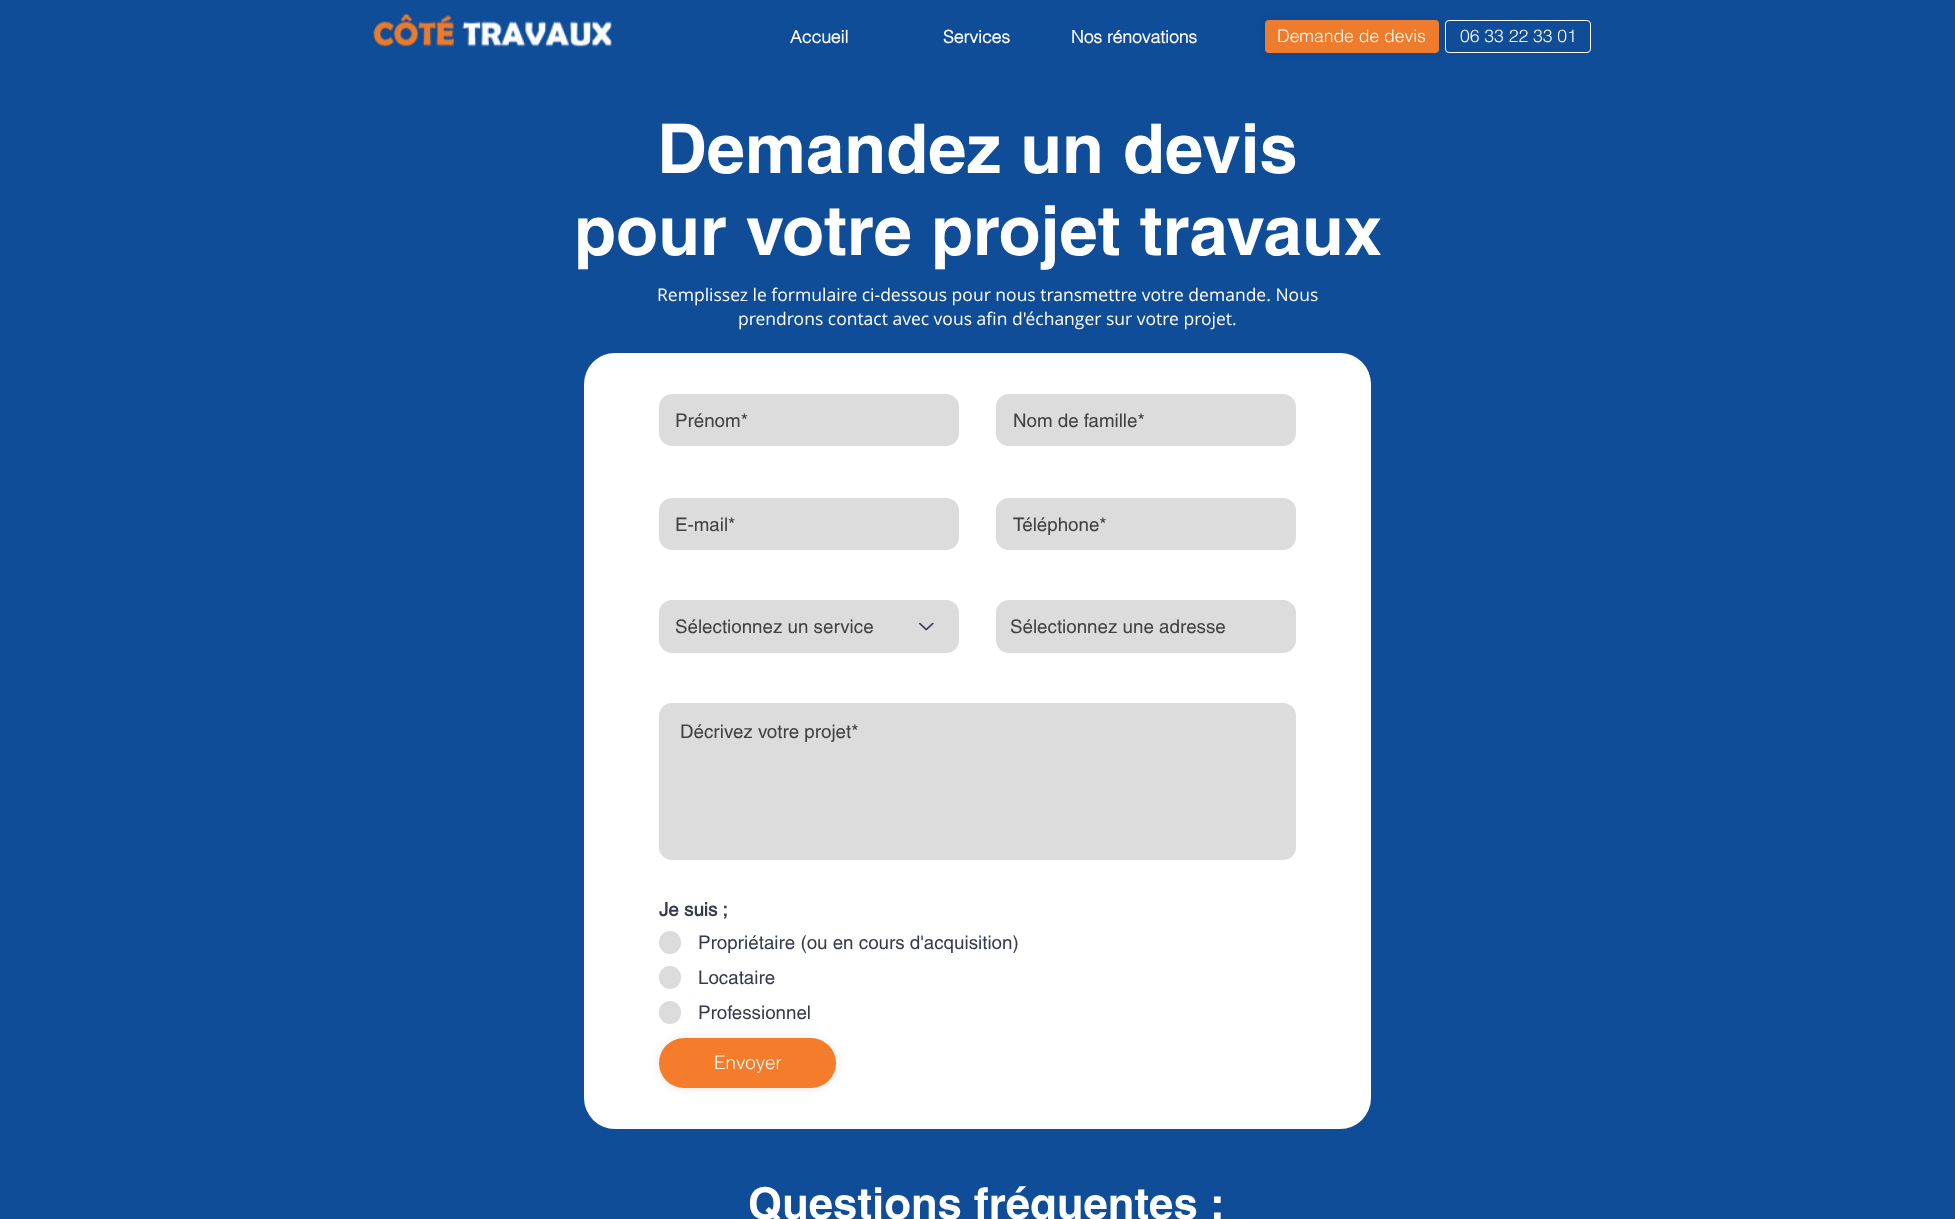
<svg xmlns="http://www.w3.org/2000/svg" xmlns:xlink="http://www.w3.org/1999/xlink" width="1955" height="1219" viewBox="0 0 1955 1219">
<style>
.cls-1{font:bold 17.5px 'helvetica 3';fill:#ffffff}
.cls-2{font:300 17.5px helvetica;fill:#ffffff}
.cls-3{font:bold 68.75px helvetica;fill:#ffffff}
.cls-4{font:17.5px Open Sans;fill:#ffffff}
.cls-5{font:18.75px helvetica;fill:#414141}
.cls-6{font:bold 18.75px 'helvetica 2';fill:#373b4d}
.cls-7{font:18.75px helvetica;fill:#373b4d}
.cls-8{font:300 18.75px helvetica;fill:#ffffff}
.cls-9{font:bold 43.75px helvetica;fill:#ffffff}
</style>
<rect width="100%" height="100%" fill="#0f4d99"/>
<image xlink:href="image0.png" x="373" y="14" width="239" height="33"/>
<rect fill="#000000" fill-opacity="0.1" filter="blur(5px)" x="1265" y="21" width="174" height="33" rx="4"/>
<rect fill="#ef7c2d" x="1265" y="20" width="174" height="33" rx="4"/>
<rect fill="none" stroke="#ffffff" x="1445.5" y="20.5" width="145" height="32" rx="3.5"/>
<rect fill="#ffffff" x="584" y="353" width="787" height="776" rx="31"/>
<rect fill="#dcdcdc" x="659" y="394" width="300" height="52" rx="13"/>
<rect fill="#dcdcdc" x="996" y="394" width="300" height="52" rx="13"/>
<rect fill="#dcdcdc" x="659" y="498" width="300" height="52" rx="13"/>
<rect fill="#dcdcdc" x="996" y="498" width="300" height="52" rx="13"/>
<rect fill="#dcdcdc" x="659" y="600" width="300" height="53" rx="13"/>
<image xlink:href="image1.png" x="919" y="623" width="15" height="8"/>
<rect fill="#dcdcdc" x="996" y="600" width="300" height="53" rx="13"/>
<rect fill="#dcdcdc" x="659" y="703" width="637" height="157" rx="13"/>
<rect fill="#dcdcdc" x="659" y="931" width="22" height="23" rx="11"/>
<rect fill="#dcdcdc" x="659" y="966" width="22" height="23" rx="11"/>
<rect fill="#dcdcdc" x="659" y="1001" width="22" height="23" rx="11"/>
<rect fill="#000000" fill-opacity="0.1" filter="blur(5px)" x="659" y="1039" width="177" height="50" rx="25"/>
<rect fill="#f47c2a" x="659" y="1038" width="177" height="50" rx="25"/>
<text class="cls-1" x="790" y="43">Accueil</text>
<text class="cls-1" x="943" y="43">Services</text>
<text class="cls-1" x="1071" y="43">Nos rénovations</text>
<text class="cls-2" x="1277" y="42">Demande de devis</text>
<text class="cls-2" x="1460" y="42">06 33 22 33 01</text>
<text class="cls-3" x="657" y="173">Demandez un devis</text>
<text class="cls-3" x="574" y="255">pour votre projet travaux</text>
<text class="cls-4" x="657" y="301">Remplissez le formulaire ci-dessous pour nous transmettre votre demande. Nous</text>
<text class="cls-4" x="738" y="325">prendrons contact avec vous afin d'échanger sur votre projet.</text>
<text class="cls-5" x="675" y="427">Prénom*</text>
<text class="cls-5" x="1013" y="427">Nom de famille*</text>
<text class="cls-5" x="675" y="531">E-mail*</text>
<text class="cls-5" x="1013" y="531">Téléphone*</text>
<text class="cls-5" x="675" y="633">Sélectionnez un service</text>
<text class="cls-5" x="1010" y="633">Sélectionnez une adresse</text>
<text class="cls-5" x="680" y="738">Décrivez votre projet*</text>
<text class="cls-6" x="659" y="916">Je suis ;</text>
<text class="cls-7"><tspan x="698" y="949">Propriétaire (ou en cours d'acquisition)</tspan><tspan x="698" y="984">Locataire</tspan><tspan x="698" y="1019">Professionnel</tspan></text>
<text class="cls-8" x="714" y="1069">Envoyer</text>
<text class="cls-9" x="748" y="1219">Questions fréquentes :</text>
</svg>
